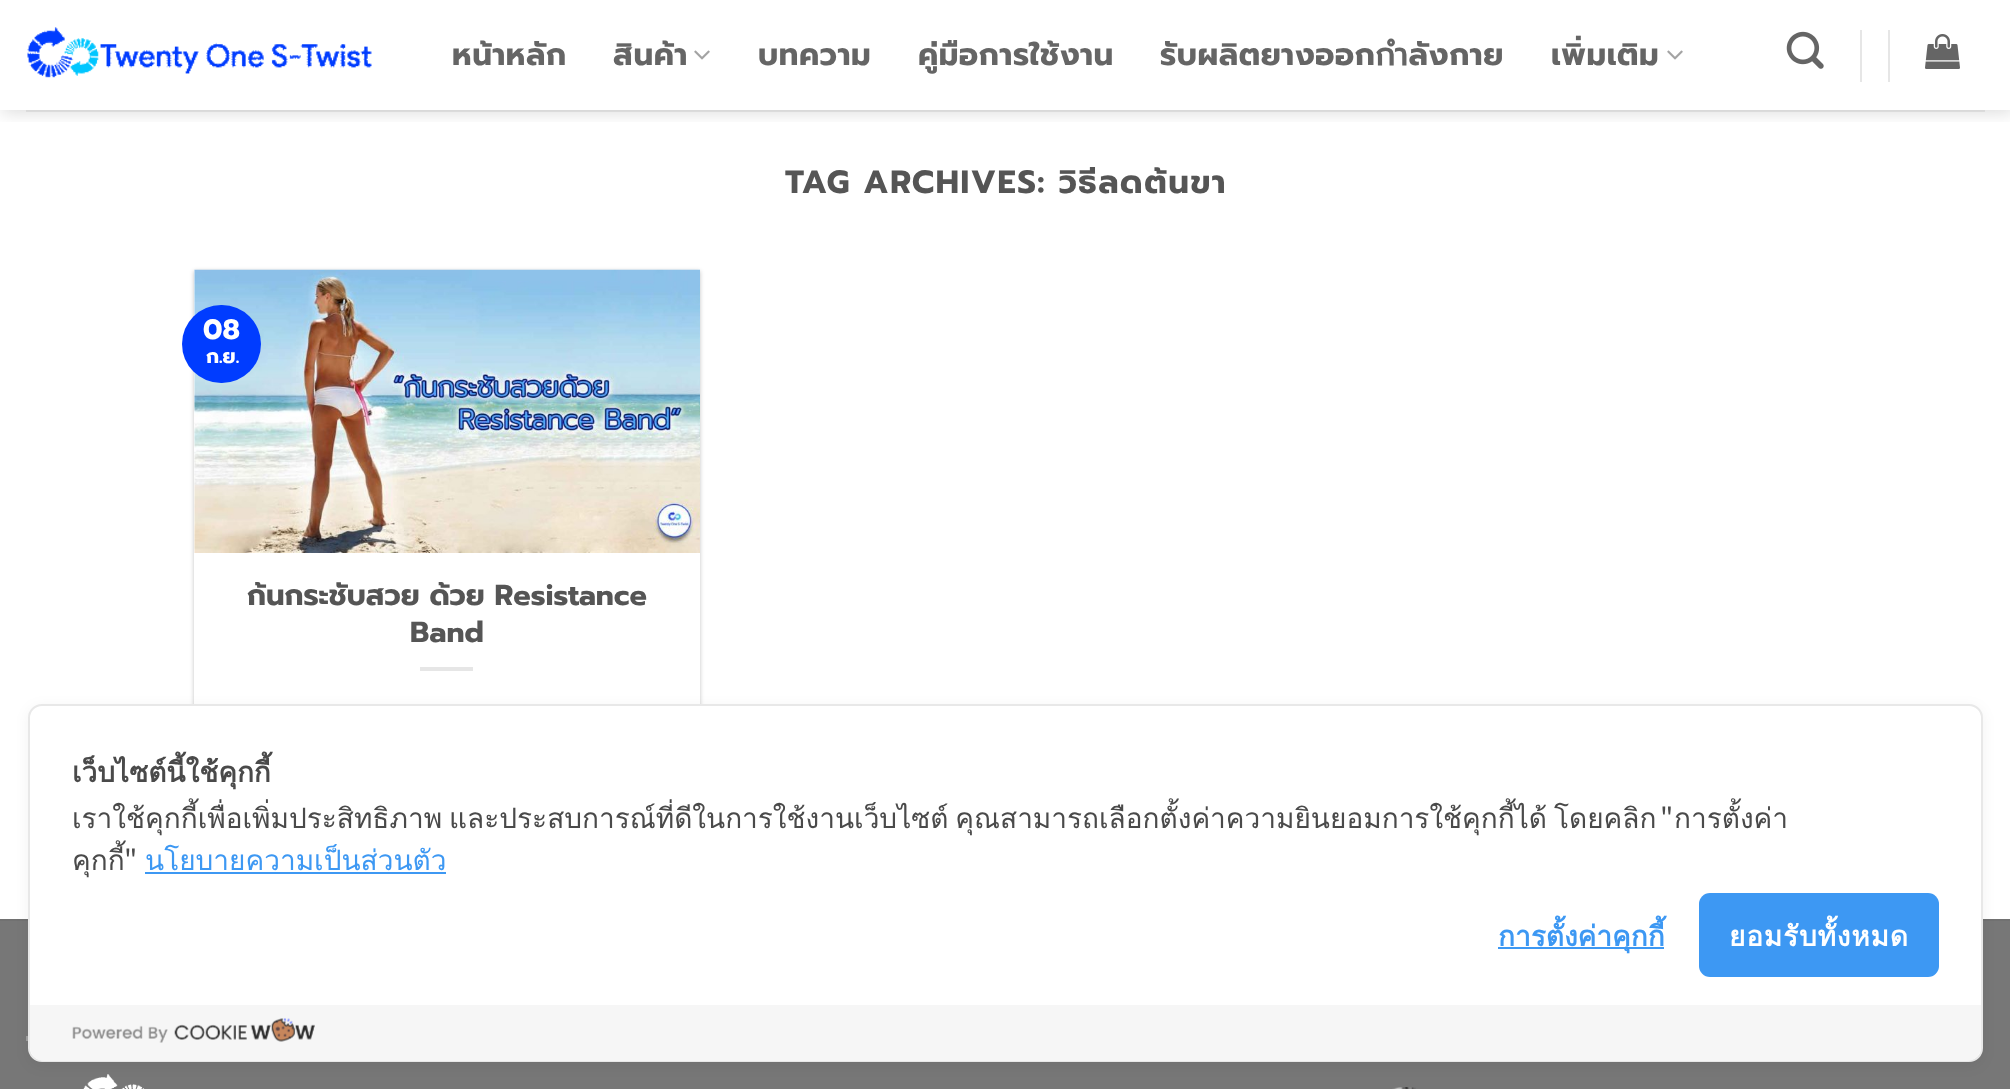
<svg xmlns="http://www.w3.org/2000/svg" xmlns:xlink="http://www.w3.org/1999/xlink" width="2010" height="1089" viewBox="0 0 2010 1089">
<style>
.cls-1{font:bold 30.75px Prompt;letter-spacing:0.6px;fill:#656565}
.cls-2{font:bold 32.25px Prompt;letter-spacing:1.6px;fill:#555555}
.cls-3{font:bold 28px Prompt;fill:#ffffff}
.cls-4{font:bold 20px Prompt;fill:#ffffff}
.cls-5{font:bold 29px Prompt;fill:#555555}
.cls-6{font:bold 28px Loma;fill:#4a4a4a}
.cls-7{font:28px Loma;fill:#4a4a4a}
.cls-8{font:28px Noto Sans JP;fill:#4a4a4a}
.cls-9{font:28px Loma;fill:#3d98f3}
.cls-10{font:bold 28px Loma;fill:#3d98f3}
.cls-11{font:bold 28px Loma;letter-spacing:0.8px;fill:#ffffff}
</style>
<defs>
<clipPath id="clip1"><rect x="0" y="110" width="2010" height="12"/></clipPath>
</defs>
<rect width="100%" height="100%" fill="#ffffff"/>
<g clip-path="url(#clip1)">
<rect fill="#000000" fill-opacity="0.15" filter="blur(9px)" x="2" y="2" width="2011" height="110"/>
</g>
<image xlink:href="image0.png" x="27" y="27" width="345" height="51"/>
<image xlink:href="image1.png" x="694" y="50" width="16" height="10"/>
<image xlink:href="image1.png" x="1667" y="50" width="16" height="10"/>
<image xlink:href="image2.png" x="1786" y="31" width="38" height="38"/>
<rect fill="#e6e6e6" x="1860" y="30" width="2" height="52"/>
<rect fill="#e6e6e6" x="1888" y="30" width="2" height="52"/>
<image xlink:href="image3.png" x="1925" y="34" width="35" height="35"/>
<rect fill="#4a4a4a" fill-opacity="0.1" x="26" y="110" width="1959" height="2"/>
<rect fill="#000000" fill-opacity="0.24" filter="blur(2px)" x="194" y="271" width="506" height="492"/>
<rect fill="#ffffff" x="194" y="270" width="506" height="434"/>
<image xlink:href="image4.png" x="194" y="269" width="506" height="284"/>
<rect fill="#003cff" x="182" y="305" width="79" height="78" rx="39"/>
<rect fill="#e6e6e6" x="420" y="667" width="53" height="4"/>
<rect fill="#777777" x="0" y="921" width="2010" height="168"/>
<rect fill="#717171" x="0" y="919" width="2010" height="2"/>
<rect fill="#a0a0a0" x="26" y="1036" width="2" height="5"/>
<image xlink:href="image5.png" x="83" y="1074" width="62" height="15"/>
<image xlink:href="image6.png" x="1392" y="1087" width="24" height="2"/>
<rect fill="#000000" fill-opacity="0.05" filter="blur(7px)" x="28" y="707" width="1955" height="359" rx="14"/>
<rect fill="#ffffff" stroke="#e8e8e8" stroke-width="2" x="29" y="705" width="1953" height="356" rx="13"/>
<rect fill="#3d98f3" x="145" y="872" width="301" height="2"/>
<rect fill="#3d98f3" x="1498" y="947" width="166" height="2"/>
<rect fill="#3d98f3" x="1699" y="893" width="240" height="84" rx="11"/>
<path fill="#f6f6f6" d="M30 1005H1981V1047C1981 1054.5 1974.5 1061 1967 1061H44C36.5 1061 30 1054.5 30 1047Z"/>
<image xlink:href="image7.png" x="72" y="1018" width="243" height="25"/>
<text class="cls-1" x="452" y="65">หน้าหลัก</text>
<text class="cls-1" x="613" y="65">สินค้า</text>
<text class="cls-1" x="758" y="65">บทความ</text>
<text class="cls-1" x="918" y="65">คู่มือการใช้งาน</text>
<text class="cls-1" x="1160" y="65">รับผลิตยางออกกำลังกาย</text>
<text class="cls-1" x="1551" y="65">เพิ่มเติม</text>
<text class="cls-2" x="785" y="193">TAG ARCHIVES: วิธีลดต้นขา</text>
<text class="cls-3" x="203" y="339">08</text>
<text class="cls-4" x="206" y="363">ก.ย.</text>
<text class="cls-5" x="247" y="605">ก้นกระชับสวย ด้วย Resistance</text>
<text class="cls-5" x="410" y="642">Band</text>
<text class="cls-6" x="72" y="782">เว็บไซต์นี้ใช้คุกกี้</text>
<text class="cls-7" x="72" y="828" word-spacing="-2.5">เราใช้คุกกี้เพื่อเพิ่มประสิทธิภาพ และประสบการณ์ที่ดีในการใช้งานเว็บไซต์ คุณสามารถเลือกตั้งค่าความยินยอมการใช้คุกกี้ได้ โดยคลิก</text>
<text class="cls-8" x="1660" y="828">"</text>
<text class="cls-7" x="1674" y="828">การตั้งค่า</text>
<text class="cls-7" x="72" y="870">คุกกี้</text>
<text class="cls-8" x="124" y="870">"</text>
<text class="cls-9" x="145" y="870">นโยบายความเป็นส่วนตัว</text>
<text class="cls-10" x="1498" y="946">การตั้งค่าคุกกี้</text>
<text class="cls-11" x="1729" y="946">ยอมรับทั้งหมด</text>
</svg>
